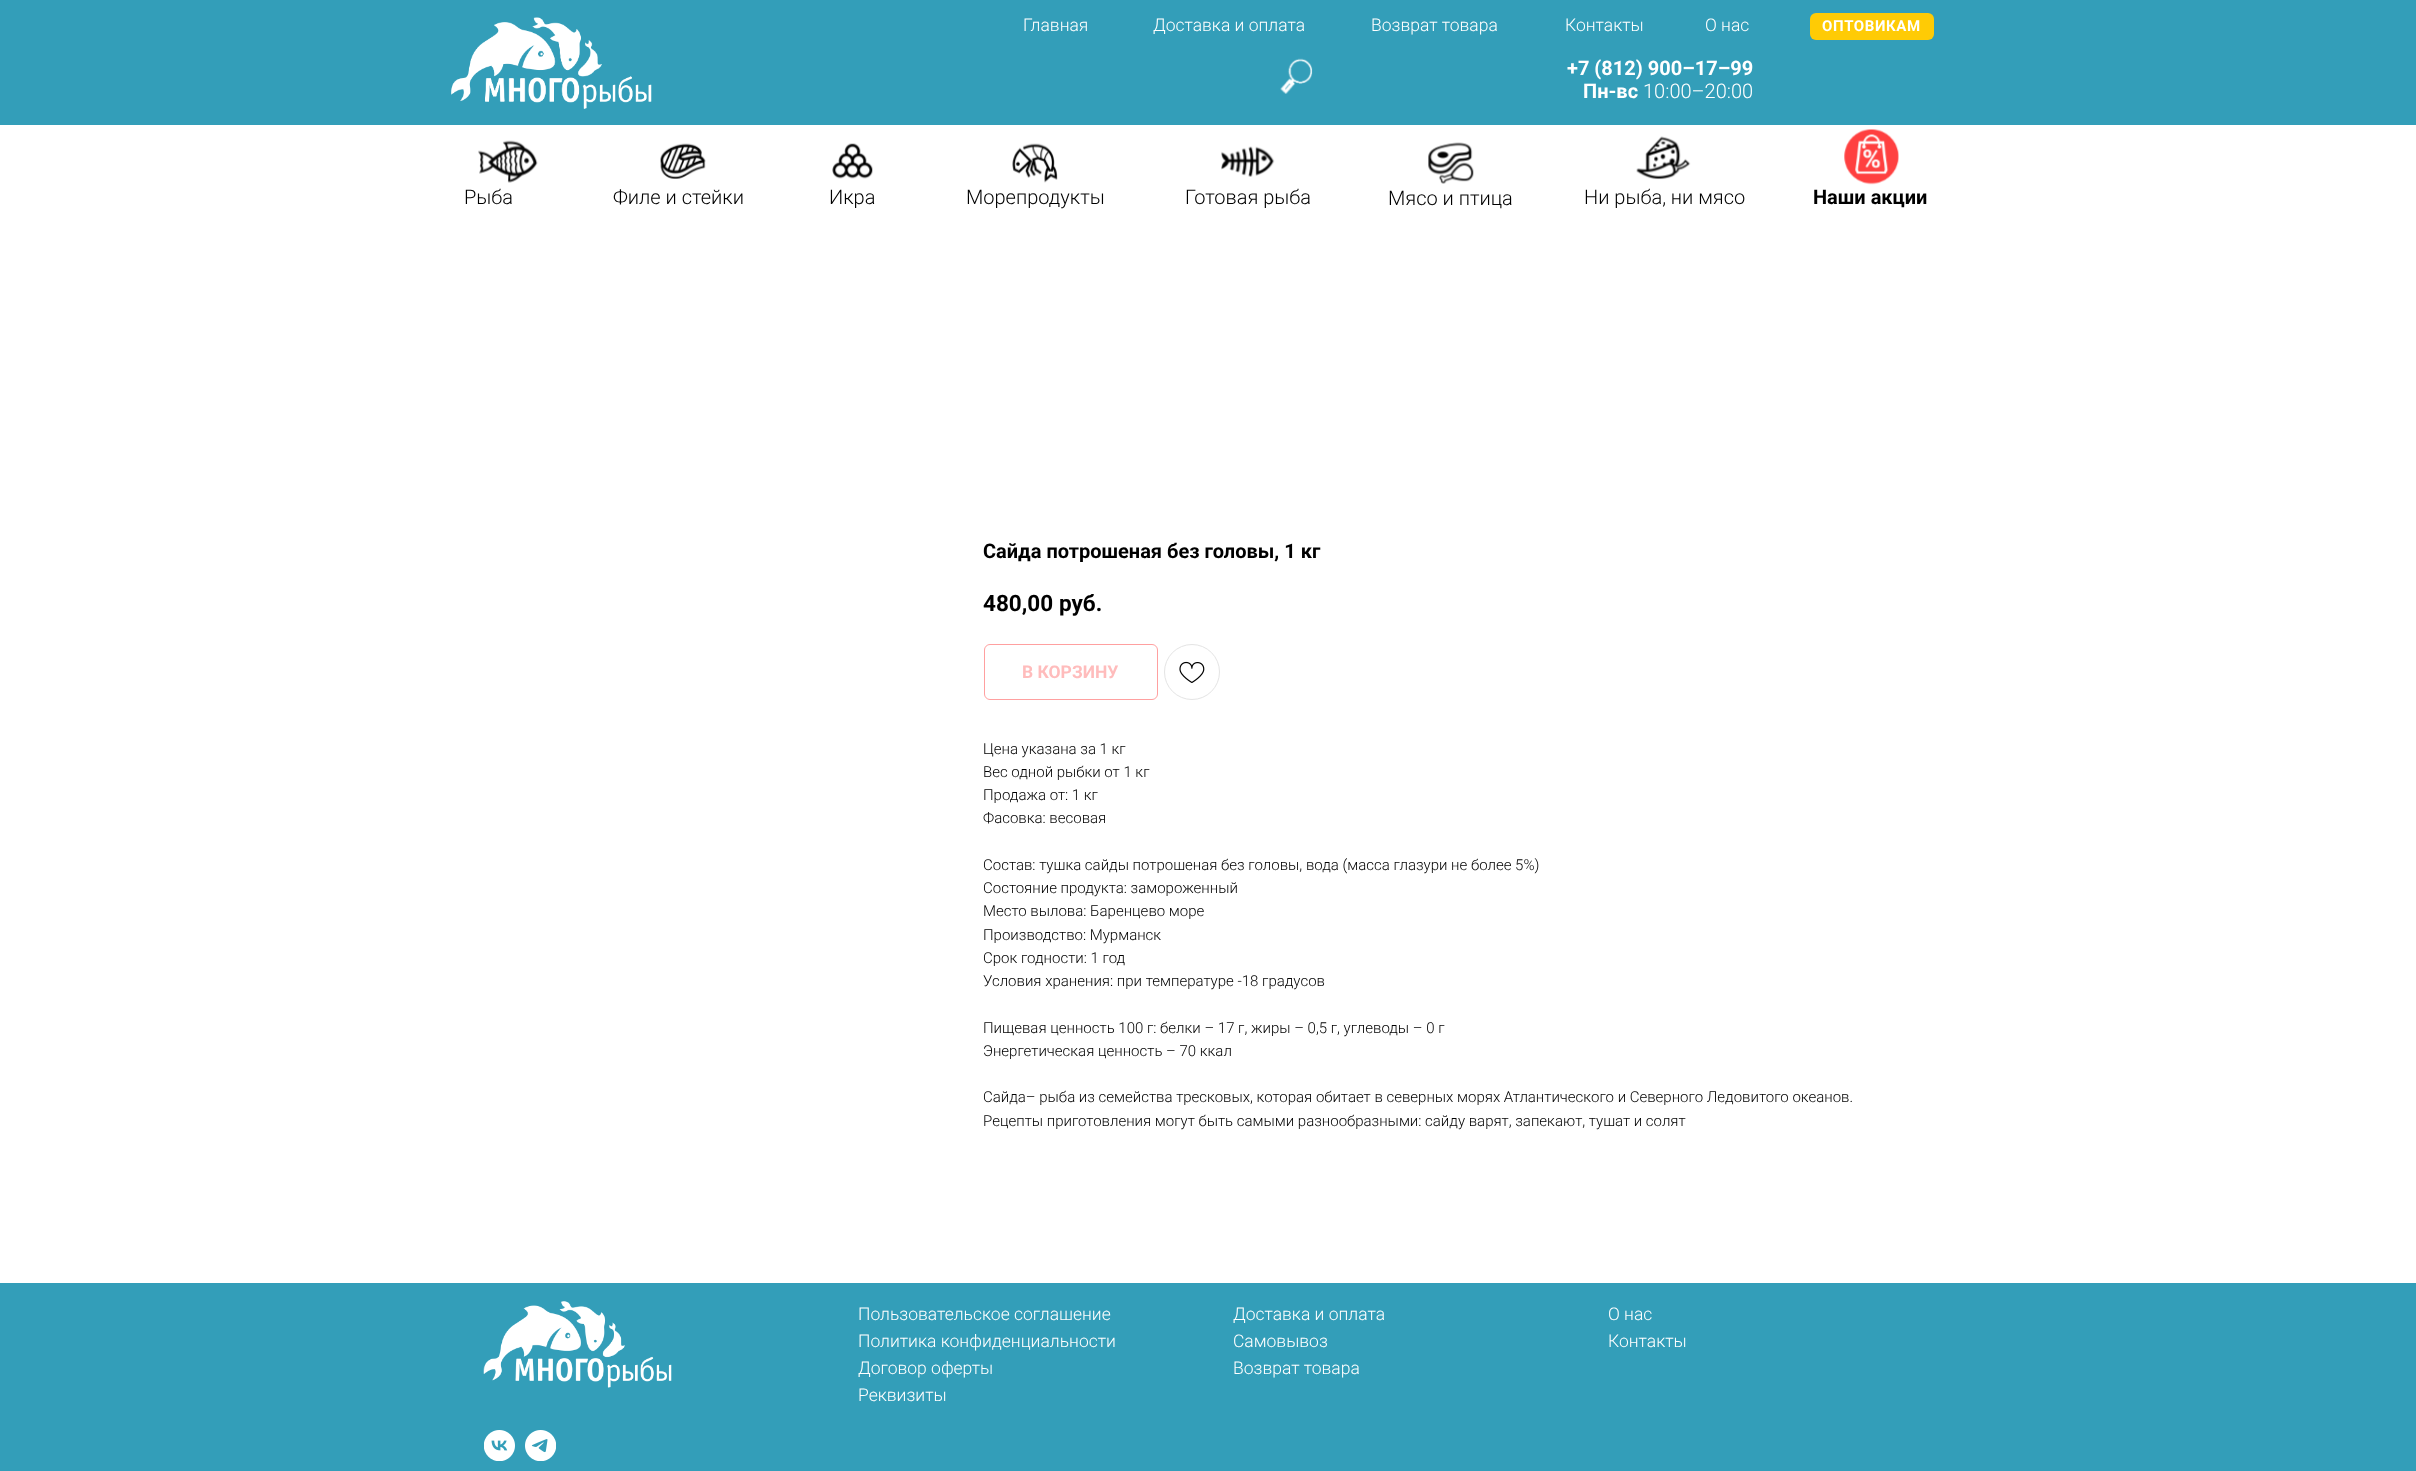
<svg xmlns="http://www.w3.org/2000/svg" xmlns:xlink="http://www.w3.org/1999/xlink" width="2416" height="1471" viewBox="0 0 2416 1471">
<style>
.cls-1{font:300 17.5px Roboto;fill:#ffffff}
.cls-2{font:bold 15px Roboto;letter-spacing:0.6px;fill:#ffffff}
.cls-3{font:bold 20px Roboto;fill:#ffffff}
.cls-4{font:300 20px Roboto;fill:#ffffff}
.cls-5{font:300 20px Roboto;fill:#000000}
.cls-6{font:bold 20px Roboto;fill:#000000}
.cls-7{font:bold 22.5px Roboto;fill:#000000}
.cls-8{font:bold 17.5px Roboto;fill:#ffbcbc}
.cls-9{font:300 15px Roboto;fill:#000000}
</style>
<rect width="100%" height="100%" fill="#ffffff"/>
<rect fill="#339eb9" x="0" y="0" width="2416" height="125"/>
<image xlink:href="image0.png" x="451" y="17" width="201" height="92"/>
<rect fill="#ffcb05" x="1810" y="13" width="124" height="27" rx="6"/>
<image xlink:href="image1.png" x="1280" y="58" width="33" height="36"/>
<image xlink:href="image2.png" x="478" y="140" width="60" height="43"/>
<image xlink:href="image3.png" x="660" y="143" width="46" height="36"/>
<image xlink:href="image4.png" x="832" y="143" width="41" height="36"/>
<image xlink:href="image5.png" x="1012" y="143" width="46" height="40"/>
<image xlink:href="image6.png" x="1221" y="146" width="54" height="31"/>
<image xlink:href="image7.png" x="1428" y="142" width="46" height="42"/>
<image xlink:href="image8.png" x="1636" y="136" width="55" height="44"/>
<image xlink:href="image9.png" x="1844" y="129" width="55" height="56"/>
<rect fill="none" stroke="#ffa0a0" x="984.5" y="644.5" width="173" height="55" rx="5.5"/>
<circle fill="none" stroke="#e4e4e4" cx="1192" cy="672" r="27.5"/>
<image xlink:href="image10.png" x="1179" y="661" width="26" height="22"/>
<rect fill="#339eb9" x="0" y="1283" width="2416" height="188"/>
<image xlink:href="image11.png" x="483" y="1301" width="189" height="87"/>
<image xlink:href="image12.png" x="484" y="1430" width="31" height="31"/>
<image xlink:href="image13.png" x="525" y="1430" width="31" height="31"/>
<text class="cls-1" x="1023" y="31">Главная</text>
<text class="cls-1" x="1153" y="31">Доставка и оплата</text>
<text class="cls-1" x="1371" y="31">Возврат товара</text>
<text class="cls-1" x="1565" y="31">Контакты</text>
<text class="cls-1" x="1705" y="31">О нас</text>
<text class="cls-2" x="1822" y="31">ОПТОВИКАМ</text>
<text class="cls-3" x="1567" y="75">+7 (812) 900–17–99</text>
<text class="cls-3" x="1583" y="98">Пн-вс</text>
<text class="cls-4" x="1643" y="98">10:00–20:00</text>
<text class="cls-5" x="464" y="204">Рыба</text>
<text class="cls-5" x="613" y="204">Филе и стейки</text>
<text class="cls-5" x="829" y="204">Икра</text>
<text class="cls-5" x="966" y="204">Морепродукты</text>
<text class="cls-5" x="1185" y="204">Готовая рыба</text>
<text class="cls-5" x="1388" y="205">Мясо и птица</text>
<text class="cls-5" x="1584" y="204">Ни рыба, ни мясо</text>
<text class="cls-6" x="1813" y="204">Наши акции</text>
<text class="cls-6" x="983" y="558">Сайда потрошеная без головы, 1 кг</text>
<text class="cls-7" x="983" y="611">480,00</text>
<text class="cls-7" x="1059" y="611">руб.</text>
<text class="cls-8" x="1022" y="678">В КОРЗИНУ</text>
<text class="cls-9"><tspan x="983" y="754">Цена указана за 1 кг</tspan><tspan x="983" y="777">Вес одной рыбки от 1 кг</tspan><tspan x="983" y="800">Продажа от: 1 кг</tspan><tspan x="983" y="823">Фасовка: весовая</tspan></text>
<text class="cls-9"><tspan x="983" y="870">Состав: тушка сайды потрошеная без головы, вода (масса глазури не более 5%)</tspan><tspan x="983" y="893">Состояние продукта: замороженный</tspan><tspan x="983" y="916">Место вылова: Баренцево море</tspan><tspan x="983" y="940">Производство: Мурманск</tspan><tspan x="983" y="963">Срок годности: 1 год</tspan><tspan x="983" y="986">Условия хранения: при температуре -18 градусов</tspan></text>
<text class="cls-9"><tspan x="983" y="1033">Пищевая ценность 100 г: белки – 17 г, жиры – 0,5 г, углеводы – 0 г</tspan><tspan x="983" y="1056">Энергетическая ценность – 70 ккал</tspan></text>
<text class="cls-9"><tspan x="983" y="1102">Сайда– рыба из семейства тресковых, которая обитает в северных морях Атлантического и Северного Ледовитого океанов.</tspan><tspan x="983" y="1126">Рецепты приготовления могут быть самыми разнообразными: сайду варят, запекают, тушат и солят</tspan></text>
<text class="cls-1"><tspan x="858" y="1320">Пользовательское соглашение</tspan><tspan x="858" y="1347">Политика конфиденциальности</tspan><tspan x="858" y="1374">Договор оферты</tspan><tspan x="858" y="1401">Реквизиты</tspan></text>
<text class="cls-1"><tspan x="1233" y="1320">Доставка и оплата</tspan><tspan x="1233" y="1347">Самовывоз</tspan><tspan x="1233" y="1374">Возврат товара</tspan></text>
<text class="cls-1"><tspan x="1608" y="1320">О нас</tspan><tspan x="1608" y="1347">Контакты</tspan></text>
</svg>
